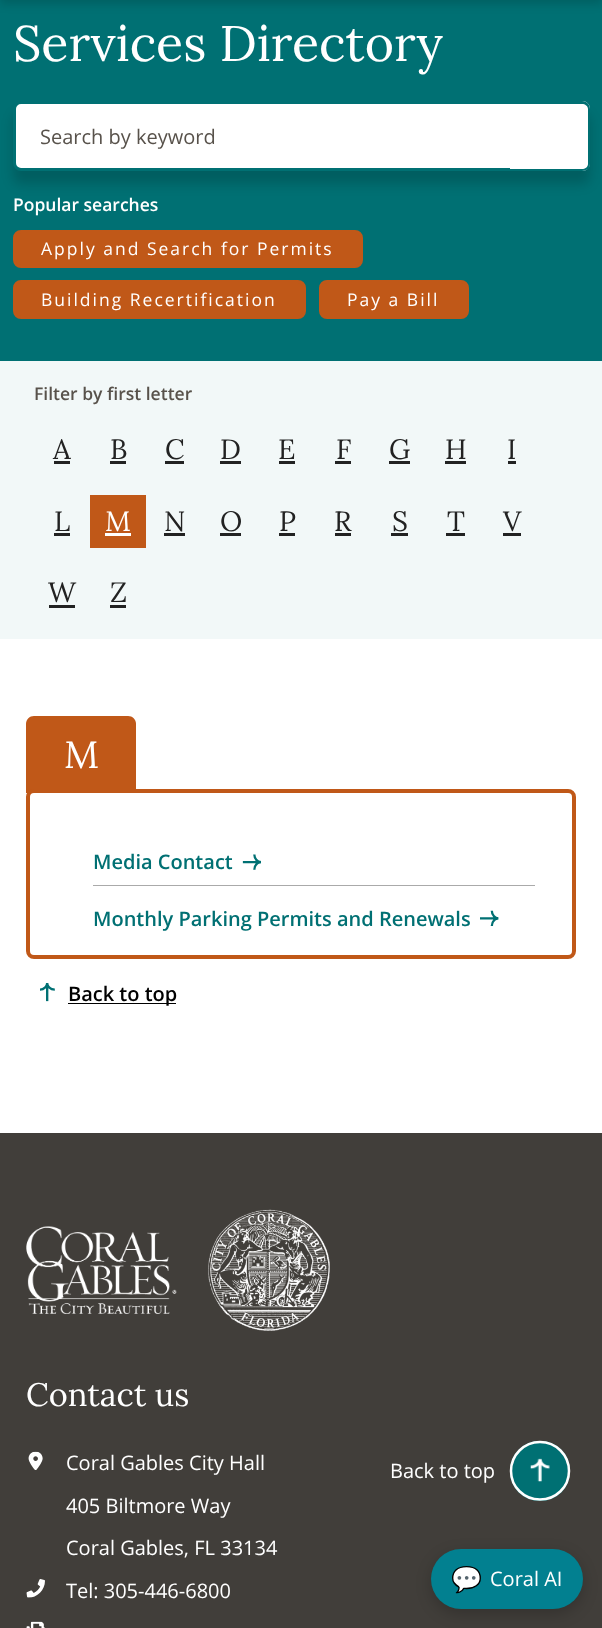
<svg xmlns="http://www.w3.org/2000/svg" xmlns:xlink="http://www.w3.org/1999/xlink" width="602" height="1628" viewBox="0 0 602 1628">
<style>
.cls-1{font:50px Lora;fill:#ffffff}
.cls-2{font:20px Open Sans;fill:#58524b}
.cls-3{font:600 17.5px Open Sans;fill:#ffffff}
.cls-4{font:17.5px Open Sans;letter-spacing:2px;fill:#ffffff}
.cls-5{font:600 17.5px Open Sans;fill:#58524b}
.cls-6{font:28px Lora;fill:#222222}
.cls-7{font:28px Lora;fill:#ffffff}
.cls-8{font:38px Lora;fill:#ffffff}
.cls-9{font:600 20px Open Sans;fill:#007073}
.cls-10{font:600 20px Open Sans;fill:#000000}
.cls-11{font:32.5px Lora;fill:#ffffff}
.cls-12{font:20px Open Sans;fill:#ffffff}
.cls-13{font:25px Noto Color Emoji;fill:#ffffff}
</style>
<rect width="100%" height="100%" fill="#ffffff"/>
<rect fill="#007073" x="0" y="0" width="602" height="361"/>
<rect fill="#000000" fill-opacity="0.15" filter="blur(5px)" x="0" y="-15" width="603" height="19"/>
<rect fill="#000000" fill-opacity="0.16" filter="blur(6px)" x="13" y="114" width="577" height="70" rx="8"/>
<rect fill="#ffffff" stroke="#007073" stroke-width="3" x="14.5" y="102.5" width="574" height="67" rx="6.5"/>
<path fill="#ffffff" d="M510 101H582C586.5 101 590 104.5 590 109V163C590 167.5 586.5 171 582 171H510Z"/>
<path fill="#007073" fill-rule="evenodd" d="M510 101H582C587 101 590 105 590 109V164C590 168 587 171 582 171H510ZM510 104H582C585 104 588 106 588 109V164C588 167 585 169 582 169H510Z"/>
<rect fill="#c05818" stroke="#c05818" stroke-width="3" x="14.5" y="231.5" width="347" height="35" rx="6.5"/>
<rect fill="#c05818" stroke="#c05818" stroke-width="3" x="14.5" y="281.5" width="290" height="36" rx="6.5"/>
<rect fill="#c05818" stroke="#c05818" stroke-width="3" x="320.5" y="281.5" width="147" height="36" rx="6.5"/>
<rect fill="#f2f8f8" x="0" y="361" width="602" height="278"/>
<rect fill="#222222" x="54" y="461" width="16" height="3"/>
<rect fill="#222222" x="110" y="461" width="16" height="3"/>
<rect fill="#222222" x="165" y="461" width="19" height="3"/>
<rect fill="#222222" x="220" y="461" width="21" height="3"/>
<rect fill="#222222" x="279" y="461" width="16" height="3"/>
<rect fill="#222222" x="335" y="461" width="16" height="3"/>
<rect fill="#222222" x="389" y="461" width="21" height="3"/>
<rect fill="#222222" x="445" y="461" width="21" height="3"/>
<rect fill="#222222" x="508" y="461" width="8" height="3"/>
<rect fill="#222222" x="54" y="533" width="16" height="3"/>
<rect fill="#c05818" x="90" y="495" width="56" height="53"/>
<rect fill="#ffffff" x="105" y="533" width="26" height="3"/>
<rect fill="#222222" x="164" y="533" width="21" height="3"/>
<rect fill="#222222" x="220" y="533" width="21" height="3"/>
<rect fill="#222222" x="279" y="533" width="16" height="3"/>
<rect fill="#222222" x="335" y="533" width="16" height="3"/>
<rect fill="#222222" x="391" y="533" width="17" height="3"/>
<rect fill="#222222" x="446" y="533" width="19" height="3"/>
<rect fill="#222222" x="503" y="533" width="18" height="3"/>
<rect fill="#222222" x="49" y="605" width="26" height="3"/>
<rect fill="#222222" x="110" y="605" width="16" height="3"/>
<path fill="#c05818" d="M34 716H128C132.5 716 136 719.5 136 724V793H26V724C26 719.5 29.5 716 34 716Z"/>
<rect fill="none" stroke="#c05818" stroke-width="4" x="28" y="791" width="546" height="166" rx="6"/>
<image xlink:href="image0.png" x="242" y="854" width="19" height="16"/>
<rect fill="#aaaaaa" x="93" y="885" width="442" height="1"/>
<image xlink:href="image1.png" x="480" y="910" width="19" height="16"/>
<image xlink:href="image2.png" x="40" y="983" width="15" height="19"/>
<rect fill="#000000" x="68" y="1003" width="108" height="1"/>
<rect fill="#413e3a" x="0" y="1133" width="602" height="495"/>
<image xlink:href="image3.png" x="26" y="1226" width="151" height="88"/>
<image xlink:href="image4.png" x="208" y="1209" width="122" height="122"/>
<image xlink:href="image5.png" x="28" y="1451" width="15" height="19"/>
<image xlink:href="image6.png" x="26" y="1579" width="19" height="19"/>
<image xlink:href="image7.png" x="26" y="1621" width="19" height="7"/>
<path fill="#007073" d="M510 1471C510 1454 523 1441 540 1441C557 1441 570 1454 570 1471C570 1488 557 1501 540 1501C523 1501 510 1488 510 1471Z"/>
<path fill="none" stroke="#ffffff" stroke-width="2.5" d="M511 1471C511 1455 524 1442 540 1442C556 1442 569 1455 569 1471C569 1487 556 1499.5 540 1499.5C524 1499.5 511 1487 511 1471Z"/>
<image xlink:href="image8.png" x="530" y="1458" width="20" height="24"/>
<rect fill="#000000" fill-opacity="0.2" filter="blur(7.5px)" x="431" y="1554" width="152" height="60" rx="30"/>
<rect fill="#028090" x="431" y="1549" width="152" height="60" rx="30"/>
<text class="cls-1" x="13" y="61">Services Directory</text>
<text class="cls-2" x="40" y="144">Search by keyword</text>
<text class="cls-3" x="13" y="211">Popular searches</text>
<text class="cls-4" x="41" y="255">Apply and Search for Permits</text>
<text class="cls-4" x="41" y="306">Building Recertification</text>
<text class="cls-4" x="347" y="306">Pay a Bill</text>
<text class="cls-5" x="34" y="400">Filter by first letter</text>
<text class="cls-6" x="53" y="459">A</text>
<text class="cls-6" x="110" y="459">B</text>
<text class="cls-6" x="165" y="459">C</text>
<text class="cls-6" x="220" y="459">D</text>
<text class="cls-6" x="278" y="459">E</text>
<text class="cls-6" x="336" y="459">F</text>
<text class="cls-6" x="389" y="459">G</text>
<text class="cls-6" x="445" y="459">H</text>
<text class="cls-6" x="507" y="459">I</text>
<text class="cls-6" x="54" y="531">L</text>
<text class="cls-7" x="105" y="531">M</text>
<text class="cls-6" x="164" y="531">N</text>
<text class="cls-6" x="220" y="531">O</text>
<text class="cls-6" x="279" y="531">P</text>
<text class="cls-6" x="334" y="531">R</text>
<text class="cls-6" x="392" y="531">S</text>
<text class="cls-6" x="447" y="531">T</text>
<text class="cls-6" x="503" y="531">V</text>
<text class="cls-6" x="48" y="602">W</text>
<text class="cls-6" x="110" y="602">Z</text>
<text class="cls-8" x="64" y="768">M</text>
<text class="cls-9" x="93" y="869">Media Contact</text>
<text class="cls-9" x="93" y="926">Monthly Parking Permits and Renewals</text>
<text class="cls-10" x="68" y="1001">Back to top</text>
<text class="cls-11" x="26" y="1406">Contact us</text>
<text class="cls-12" x="66" y="1470">Coral Gables City Hall</text>
<text class="cls-12" x="66" y="1513">405 Biltmore Way</text>
<text class="cls-12" x="66" y="1555">Coral Gables, FL 33134</text>
<text class="cls-12" x="66" y="1598">Tel: 305-446-6800</text>
<text class="cls-12" x="390" y="1478">Back to top</text>
<text class="cls-13" x="451" y="1588">💬</text>
<text class="cls-12" x="490" y="1586">Coral AI</text>
</svg>
